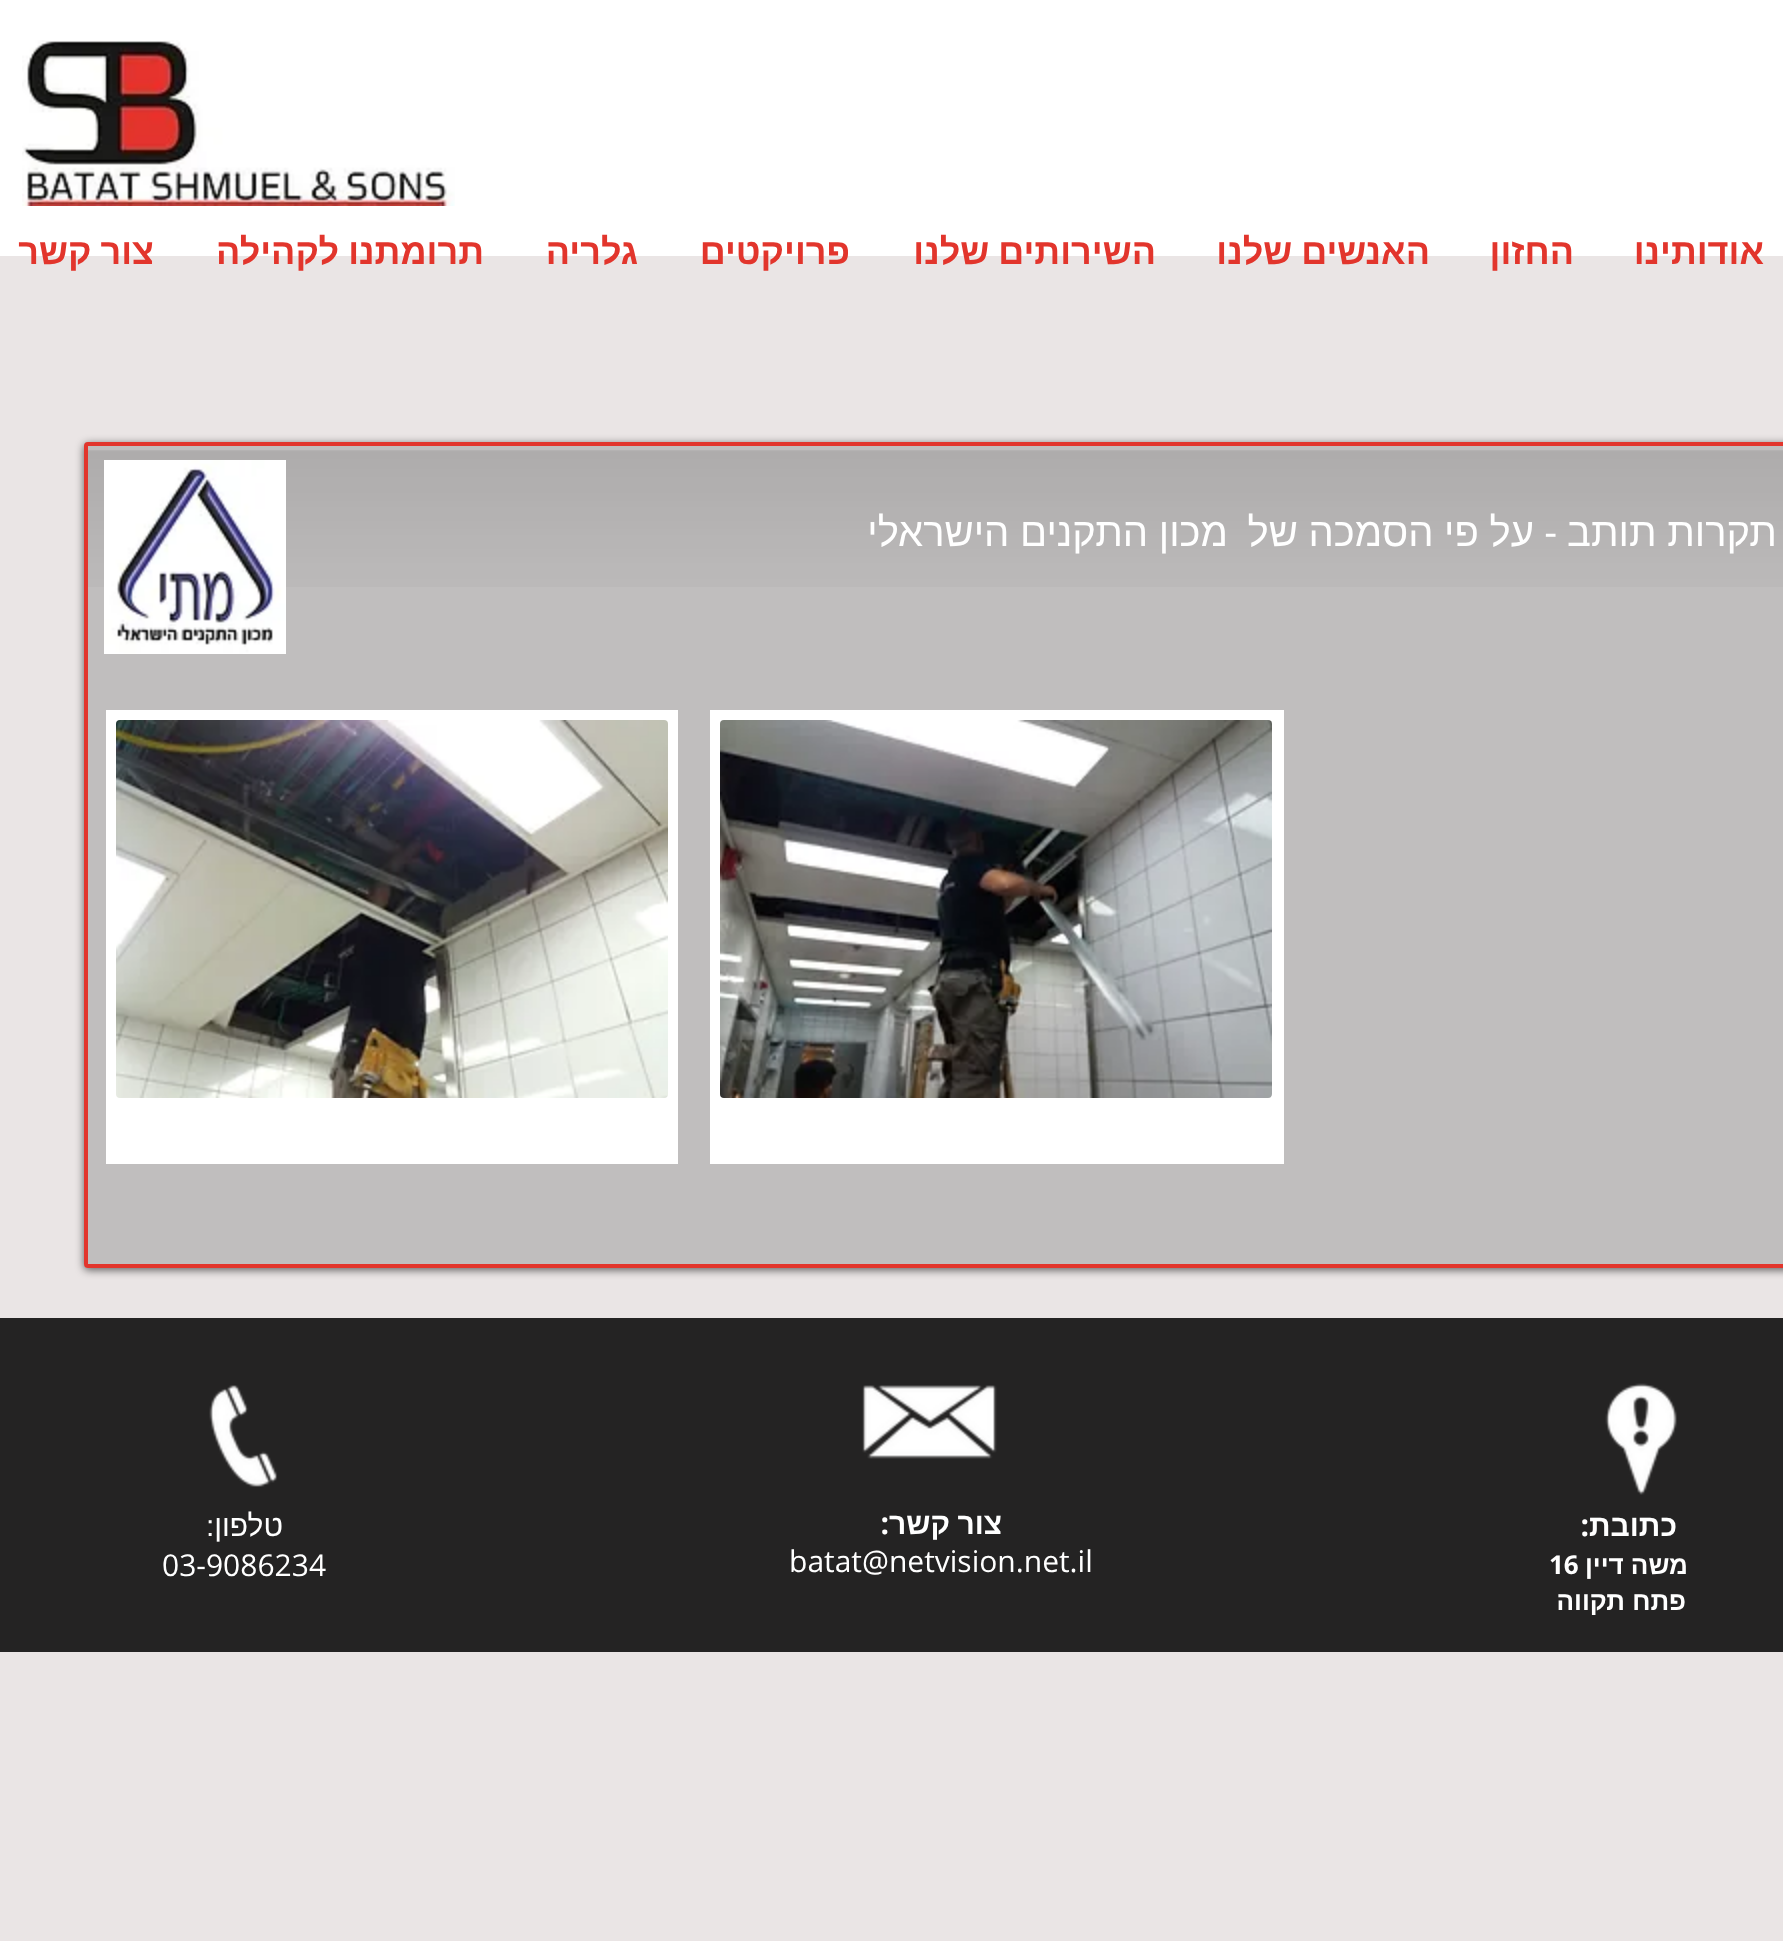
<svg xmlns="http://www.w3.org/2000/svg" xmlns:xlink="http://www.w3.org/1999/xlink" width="1783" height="1941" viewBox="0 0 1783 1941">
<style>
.cls-1{font:bold 36px Liberation Sans;direction:rtl;fill:#e2352c}
.cls-2{font:40px Liberation Sans;direction:rtl;fill:#ffffff}
.cls-3{font:40px Open Sans;direction:rtl;fill:#ffffff}
.cls-4{font:bold 30px Liberation Sans;direction:rtl;fill:#ffffff}
.cls-5{font:bold 30px Open Sans;direction:rtl;fill:#ffffff}
.cls-6{font:bold 26px Liberation Sans;direction:rtl;fill:#ffffff}
.cls-7{font:bold 26px Open Sans;fill:#ffffff}
.cls-8{font:30px Open Sans;fill:#ffffff}
.cls-9{font:30px Liberation Sans;direction:rtl;fill:#ffffff}
</style>
<defs>
<clipPath id="clip1"><path d="M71 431H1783V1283H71ZM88 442H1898C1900 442 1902 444 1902 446V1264C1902 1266 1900 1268 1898 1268H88C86 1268 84 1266 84 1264V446C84 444 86 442 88 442Z" clip-rule="evenodd"/></clipPath>
</defs>
<rect width="100%" height="100%" fill="#eae5e5"/>
<rect fill="#ffffff" x="0" y="0" width="1783" height="256"/>
<image xlink:href="image0.png" x="22" y="40" width="433" height="166"/>
<g clip-path="url(#clip1)">
<rect fill="#000000" fill-opacity="0.6" filter="blur(4px)" x="84" y="444" width="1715" height="826" rx="4"/>
</g>
<rect fill="#959595" fill-opacity="0.49" x="84" y="442" width="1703" height="826" rx="4"/>
<image xlink:href="image1.png" x="88" y="450" width="1695" height="137"/>
<rect fill="none" stroke="#e2352c" stroke-width="4" x="86" y="444" width="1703" height="822" rx="2"/>
<image xlink:href="image2.png" x="104" y="460" width="182" height="194"/>
<rect fill="#ffffff" x="720" y="720" width="554" height="378"/>
<path fill="none" stroke="#ffffff" stroke-width="10" d="M715 715H1279V1103H715Z"/>
<image xlink:href="image3.png" x="720" y="720" width="552" height="378"/>
<rect fill="#ffffff" x="710" y="1108" width="574" height="56"/>
<rect fill="#ffffff" x="116" y="720" width="552" height="378"/>
<path fill="none" stroke="#ffffff" stroke-width="10" d="M111 715H673V1103H111Z"/>
<image xlink:href="image4.png" x="116" y="720" width="552" height="378"/>
<rect fill="#ffffff" x="106" y="1108" width="572" height="56"/>
<rect fill="#242323" x="0" y="1318" width="1783" height="334"/>
<image xlink:href="image5.png" x="1605" y="1383" width="72" height="112"/>
<image xlink:href="image6.png" x="862" y="1385" width="135" height="74"/>
<image xlink:href="image7.png" x="209" y="1385" width="68" height="102"/>
<text class="cls-1" x="1764" y="264">אודותינו</text>
<text class="cls-1" x="1574" y="264">החזון</text>
<text class="cls-1" x="1430" y="264" word-spacing="-1">האנשים שלנו</text>
<text class="cls-1" x="1156" y="264" word-spacing="-1">השירותים שלנו</text>
<text class="cls-1" x="850" y="264">פרויקטים</text>
<text class="cls-1" x="638" y="264">גלריה</text>
<text class="cls-1" x="484" y="264" word-spacing="-1">תרומתנו לקהילה</text>
<text class="cls-1" x="154" y="264" word-spacing="-1">צור קשר</text>
<text class="cls-2" x="1777" y="546" word-spacing="-0.5">תקרות תותב</text>
<text class="cls-3" x="1557" y="546">-</text>
<text class="cls-2" x="1534" y="546" word-spacing="-0.5">על פי הסמכה של</text>
<text class="cls-2" x="1228" y="546" word-spacing="-0.5">מכון התקנים הישראלי</text>
<text class="cls-4" x="1677" y="1536">כתובת</text>
<text class="cls-5" x="1589" y="1536">:</text>
<text class="cls-6" x="1688" y="1574">משה דיין</text>
<text class="cls-7" x="1549" y="1574">16</text>
<text class="cls-6" x="1686" y="1610">פתח תקווה</text>
<text class="cls-4" x="1002" y="1534" word-spacing="-1">צור קשר</text>
<text class="cls-5" x="889" y="1534">:</text>
<text class="cls-8" x="789" y="1572">batat@netvision.net.il</text>
<text class="cls-9" x="283" y="1536">טלפון:</text>
<text class="cls-8" x="162" y="1576">03-9086234</text>
</svg>
